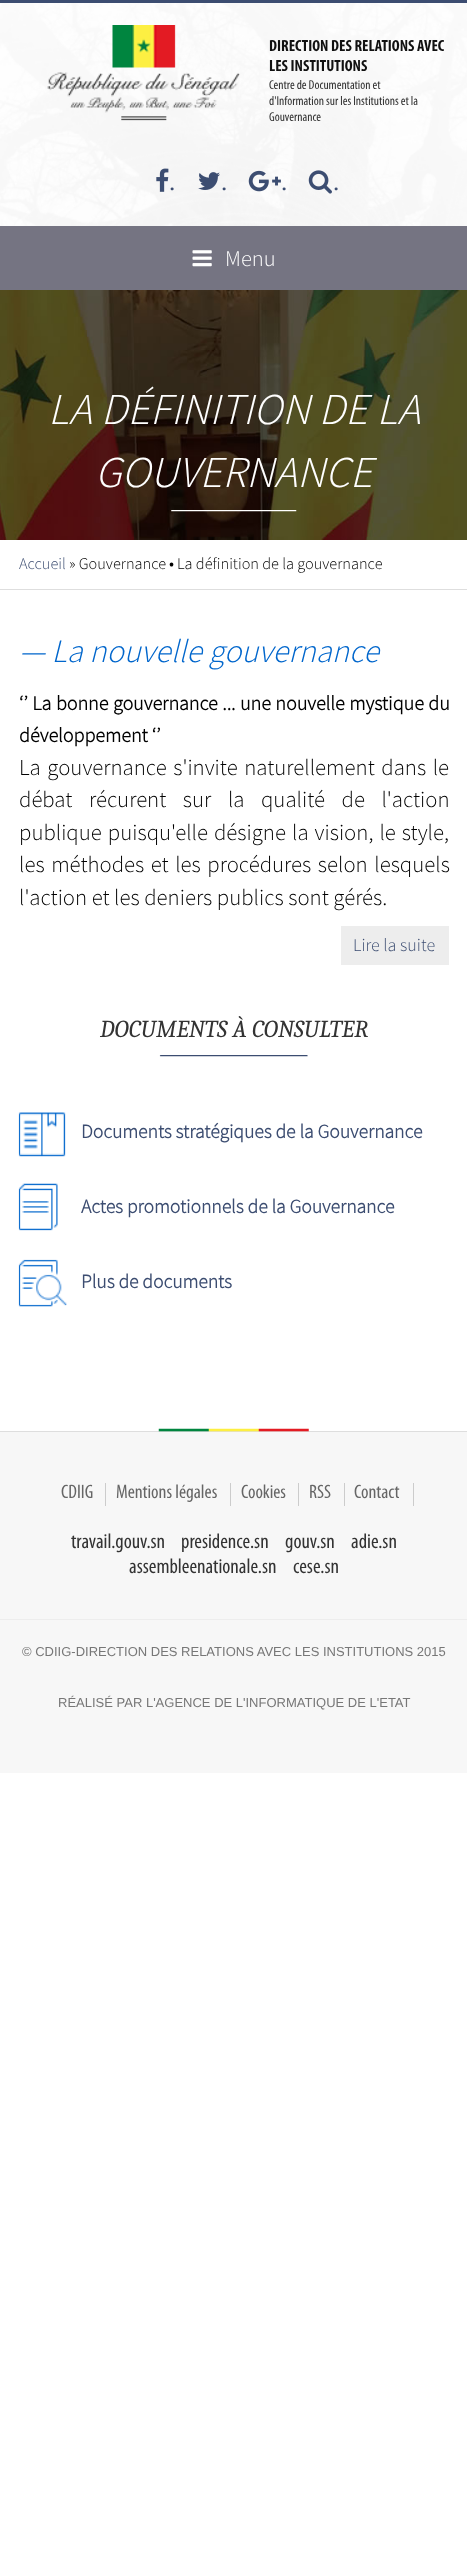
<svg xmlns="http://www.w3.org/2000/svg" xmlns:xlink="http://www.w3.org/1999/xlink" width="467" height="2552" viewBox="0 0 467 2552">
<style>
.cls-1{font:bold 16.25px Myriad;fill:#111111}
.cls-2{font:13px Myriad;fill:#333333}
.cls-3{font:25px Liberation Serif;fill:#3c4d71}
.cls-4{font:300 22.5px Source Sans Pro;fill:#ffffff}
.cls-5{font:italic 300 43.9px Source Sans Pro;fill:#ffffff}
.cls-6{font:300 16.25px Source Sans Pro;fill:#3c4d71}
.cls-7{font:300 16.25px Source Sans Pro;fill:#000000}
.cls-8{font:bold 16.25px Source Sans Pro;fill:#000000}
.cls-9{font:italic 300 32.5px Source Sans Pro;fill:#0066cc}
.cls-10{font:bold 20px Source Sans Pro;fill:#000000}
.cls-11{font:300 22.75px Source Sans Pro;fill:#000000}
.cls-12{font:300 18px Source Sans Pro;fill:#3c4d71}
.cls-13{font:italic 24.4px Caladea;fill:#333333}
.cls-14{font:bold 19.5px Source Sans Pro;fill:#3c4d71}
.cls-15{font:19.5px Myriad;fill:#666666}
.cls-16{font:21px Myriad;fill:#333333}
.cls-17{font:13px Liberation Sans;fill:#777777}
</style>
<rect width="100%" height="100%" fill="#ffffff"/>
<rect fill="#3c4d71" x="0" y="0" width="467" height="3"/>
<image xlink:href="image0.png" x="0" y="3" width="467" height="223"/>
<image xlink:href="image1.png" x="47" y="25" width="193" height="96"/>
<image xlink:href="image2.png" x="156" y="168" width="13" height="24"/>
<image xlink:href="image3.png" x="198" y="172" width="22" height="18"/>
<image xlink:href="image4.png" x="248" y="170" width="33" height="22"/>
<image xlink:href="image5.png" x="308" y="170" width="24" height="24"/>
<rect fill="#757482" x="0" y="226" width="467" height="64"/>
<image xlink:href="image6.png" x="192" y="250" width="20" height="17"/>
<image xlink:href="image7.png" x="0" y="290" width="467" height="250"/>
<image xlink:href="image8.png" x="171" y="510" width="126" height="2"/>
<rect fill="#dedede" x="0" y="589" width="467" height="1"/>
<rect fill="#ededed" x="341" y="926" width="108" height="39"/>
<image xlink:href="image9.png" x="159" y="1055" width="149" height="2"/>
<image xlink:href="image10.png" x="18" y="1112" width="48" height="45"/>
<image xlink:href="image11.png" x="18" y="1183" width="40" height="48"/>
<image xlink:href="image12.png" x="18" y="1259" width="49" height="48"/>
<rect fill="#f7f7f7" x="0" y="1432" width="467" height="341"/>
<rect fill="#dedede" x="0" y="1431" width="467" height="1"/>
<image xlink:href="image13.png" x="158" y="1428" width="151" height="4"/>
<rect fill="#cccccc" x="105" y="1483" width="1" height="23"/>
<rect fill="#cccccc" x="230" y="1483" width="1" height="23"/>
<rect fill="#cccccc" x="298" y="1483" width="1" height="23"/>
<rect fill="#cccccc" x="344" y="1483" width="1" height="23"/>
<rect fill="#cccccc" x="413" y="1483" width="1" height="23"/>
<rect fill="#ededed" x="0" y="1619" width="467" height="1"/>
<text class="cls-1"><tspan x="269" y="51">DIRECTION DES RELATIONS AVEC</tspan><tspan x="269" y="71">LES INSTITUTIONS</tspan></text>
<text class="cls-2"><tspan x="269" y="89">Centre de Documentation et</tspan><tspan x="269" y="105">d'Information sur les Institutions et la</tspan><tspan x="269" y="121">Gouvernance</tspan></text>
<text class="cls-3" x="169" y="190">.</text>
<text class="cls-3" x="221" y="190">.</text>
<text class="cls-3" x="281" y="190">.</text>
<text class="cls-3" x="333" y="190">.</text>
<text class="cls-4" x="225" y="266">Menu</text>
<text class="cls-5" x="48" y="424">LA DÉFINITION DE LA</text>
<text class="cls-5" x="95" y="487">GOUVERNANCE</text>
<text class="cls-6" x="19" y="569">Accueil</text>
<text class="cls-7" x="69" y="569">» Gouvernance</text>
<text class="cls-8" x="169" y="569">•</text>
<text class="cls-7" x="177" y="569">La définition de la gouvernance</text>
<text class="cls-9" x="19" y="662">— La nouvelle gouvernance</text>
<text class="cls-10"><tspan x="19" y="710" word-spacing="0.5">‘’ La bonne gouvernance ... une nouvelle mystique du</tspan><tspan x="19" y="742">développement ‘’</tspan></text>
<text class="cls-11"><tspan x="19" y="775" word-spacing="2">La gouvernance s'invite naturellement dans le</tspan><tspan x="19" y="807" word-spacing="12">débat récurent sur la qualité de l'action</tspan><tspan x="19" y="840" word-spacing="1.5">publique puisqu'elle désigne la vision, le style,</tspan><tspan x="19" y="872" word-spacing="2">les méthodes et les procédures selon lesquels</tspan><tspan x="19" y="905">l'action et les deniers publics sont gérés.</tspan></text>
<text class="cls-12" x="353" y="951">Lire la suite</text>
<text class="cls-13" x="100" y="1037">DOCUMENTS À CONSULTER</text>
<text class="cls-14" x="81" y="1138">Documents stratégiques de la Gouvernance</text>
<text class="cls-14" x="81" y="1213">Actes promotionnels de la Gouvernance</text>
<text class="cls-14" x="81" y="1288">Plus de documents</text>
<text class="cls-15" x="61" y="1498">CDIIG</text>
<text class="cls-15" x="116" y="1498">Mentions légales</text>
<text class="cls-15" x="241" y="1498">Cookies</text>
<text class="cls-15" x="309" y="1498">RSS</text>
<text class="cls-15" x="354" y="1498">Contact</text>
<text class="cls-16" x="71" y="1548">travail.gouv.sn</text>
<text class="cls-16" x="181" y="1548">presidence.sn</text>
<text class="cls-16" x="285" y="1548">gouv.sn</text>
<text class="cls-16" x="351" y="1548">adie.sn</text>
<text class="cls-16" x="129" y="1573">assembleenationale.sn</text>
<text class="cls-16" x="293" y="1573">cese.sn</text>
<text class="cls-17" x="22" y="1656">© CDIIG-DIRECTION DES RELATIONS AVEC LES INSTITUTIONS 2015</text>
<text class="cls-17" x="58" y="1707">RÉALISÉ PAR L'AGENCE DE L'INFORMATIQUE DE L'ETAT</text>
</svg>
